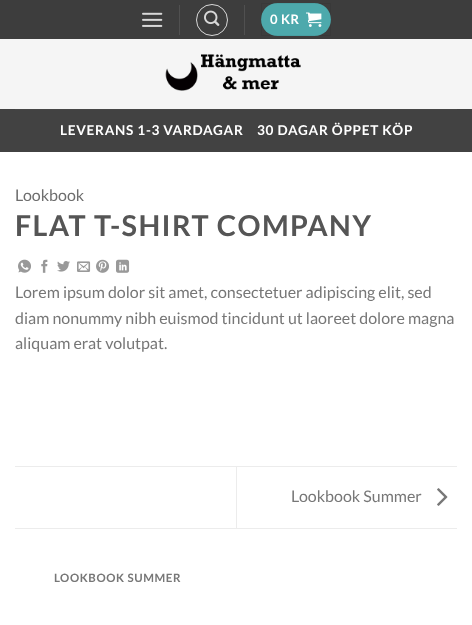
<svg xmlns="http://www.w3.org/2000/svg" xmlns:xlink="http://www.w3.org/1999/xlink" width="472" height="625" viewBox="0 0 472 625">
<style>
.cls-1{font:bold 13px Lato;letter-spacing:0.5px;fill:#ffffff}
.cls-2{font:bold 13.6px Lato;letter-spacing:0.7px;fill:#ffffff}
.cls-3{font:16px Lato;fill:#6e6e6e}
.cls-4{font:bold 28.75px Lato;letter-spacing:1.4px;fill:#555555}
.cls-5{font:16px Lato;fill:#777777}
.cls-6{font:bold 11.5px Lato;letter-spacing:0.6px;fill:#777777}
</style>
<rect width="100%" height="100%" fill="#ffffff"/>
<rect fill="#3d3d3d" x="0" y="0" width="472" height="39"/>
<image xlink:href="image0.png" x="142" y="12" width="21" height="15"/>
<rect fill="#505050" x="179" y="5" width="1" height="30"/>
<circle fill="none" stroke="#d8d8d8" cx="212" cy="20" r="15.5"/>
<image xlink:href="image1.png" x="204" y="10" width="16" height="16"/>
<rect fill="#505050" x="244" y="5" width="1" height="30"/>
<rect fill="#4da9ac" x="261" y="3" width="70" height="33" rx="16.5"/>
<rect fill="none" stroke="#000000" stroke-opacity="0.05" x="261.5" y="3.5" width="69" height="32"/>
<image xlink:href="image2.png" x="306" y="12" width="16" height="15"/>
<rect fill="#f5f5f5" x="0" y="39" width="472" height="70"/>
<image xlink:href="image3.png" x="165" y="54" width="136" height="37"/>
<rect fill="#424242" x="0" y="109" width="472" height="43"/>
<rect fill="#474747" x="15" y="109" width="442" height="1"/>
<image xlink:href="image4.png" x="18" y="259" width="13" height="14"/>
<image xlink:href="image5.png" x="41" y="259" width="7" height="14"/>
<image xlink:href="image6.png" x="57" y="261" width="13" height="11"/>
<image xlink:href="image7.png" x="77" y="261" width="14" height="11"/>
<image xlink:href="image8.png" x="96" y="259" width="13" height="14"/>
<image xlink:href="image9.png" x="116" y="259" width="14" height="14"/>
<rect fill="#ececec" x="15" y="466" width="442" height="1"/>
<rect fill="#ececec" x="15" y="528" width="442" height="1"/>
<rect fill="#ececec" x="236" y="467" width="1" height="61"/>
<image xlink:href="image10.png" x="437" y="488" width="11" height="18"/>
<text class="cls-1" x="270" y="24">0 KR</text>
<text class="cls-2" x="60" y="135">LEVERANS 1-3 VARDAGAR</text>
<text class="cls-2" x="257" y="135">30 DAGAR ÖPPET KÖP</text>
<text class="cls-3" x="15" y="201">Lookbook</text>
<text class="cls-4" x="15" y="236">FLAT T-SHIRT COMPANY</text>
<text class="cls-5"><tspan x="15" y="298">Lorem ipsum dolor sit amet, consectetuer adipiscing elit, sed</tspan><tspan x="15" y="324">diam nonummy nibh euismod tincidunt ut laoreet dolore magna</tspan><tspan x="15" y="349">aliquam erat volutpat.</tspan></text>
<text class="cls-5" x="291" y="502">Lookbook Summer</text>
<text class="cls-6" x="54" y="582">LOOKBOOK SUMMER</text>
</svg>
